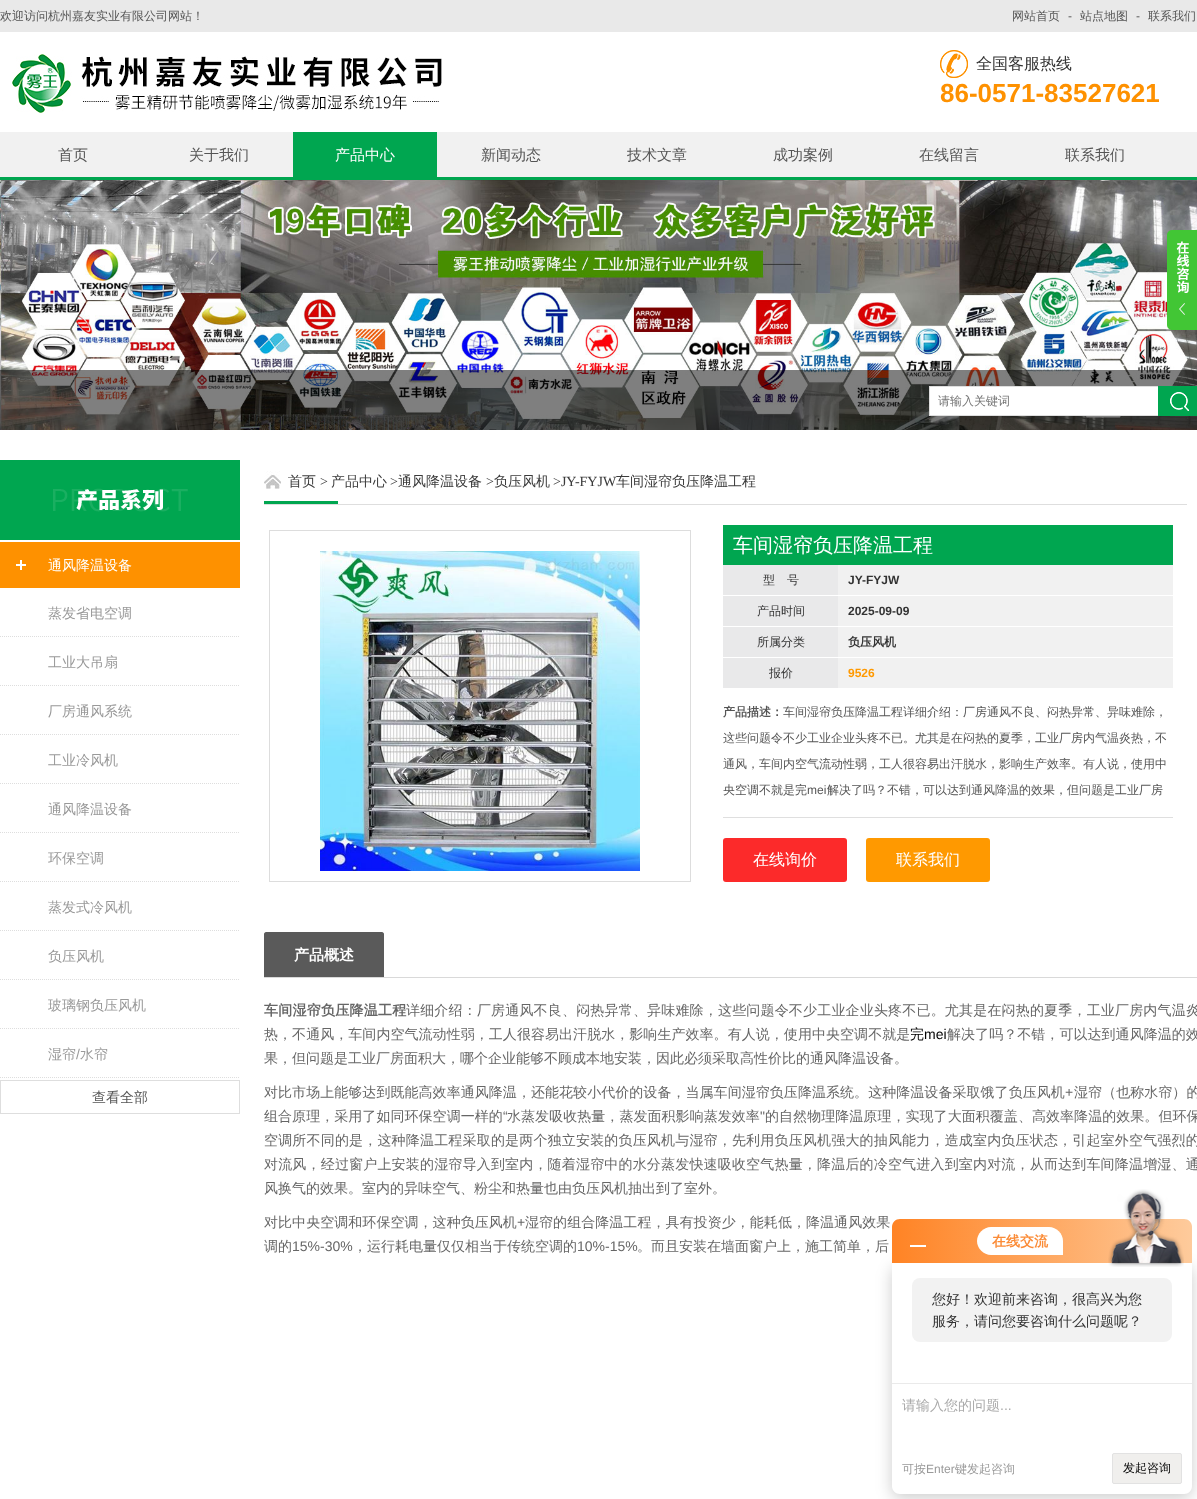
<svg xmlns="http://www.w3.org/2000/svg" xmlns:xlink="http://www.w3.org/1999/xlink" width="1197" height="1499" viewBox="0 0 1197 1499">
<style>
.cls-1{font:500 12px WenQuanYi Zen Hei;fill:#555555}
.cls-2{font:12px Liberation Sans;fill:#555555}
.cls-3{font:500 16px WenQuanYi Zen Hei;fill:#333333}
.cls-4{font:bold 26px Liberation Sans;fill:#fe9100}
.cls-5{font:500 15px WenQuanYi Zen Hei;fill:#555555}
.cls-6{font:500 15px WenQuanYi Zen Hei;fill:#ffffff}
.cls-7{font:500 12px WenQuanYi Zen Hei;fill:#757575}
.cls-8{font:500 14px WenQuanYi Zen Hei;fill:#ffffff}
.cls-9{font:500 14px WenQuanYi Zen Hei;fill:#999999}
.cls-10{font:14px Liberation Sans;fill:#999999}
.cls-11{font:500 14px WenQuanYi Zen Hei;fill:#555555}
.cls-12{font:500 14px WenQuanYi Zen Hei;fill:#3b3b3b}
.cls-13{font:14px Liberation Serif;fill:#3b3b3b}
.cls-14{font:500 20px WenQuanYi Zen Hei;fill:#ffffff}
.cls-15{font:500 12px WenQuanYi Zen Hei;fill:#333333}
.cls-16{font:bold 12px Liberation Sans;fill:#333333}
.cls-17{font:bold 12px WenQuanYi Zen Hei;fill:#333333}
.cls-18{font:bold 12px Liberation Sans;fill:#ff9900}
.cls-19{font:bold 12px WenQuanYi Zen Hei;fill:#555555}
.cls-20{font:500 16px WenQuanYi Zen Hei;fill:#ffffff}
.cls-21{font:bold 15px WenQuanYi Zen Hei;fill:#ffffff}
.cls-22{font:bold 14px WenQuanYi Zen Hei;letter-spacing:0.25px;fill:#666666}
.cls-23{font:500 14px WenQuanYi Zen Hei;letter-spacing:0.18px;fill:#666666}
.cls-24{font:500 14px WenQuanYi Zen Hei;letter-spacing:0.05px;fill:#666666}
.cls-25{font:500 14px WenQuanYi Zen Hei;fill:#000000}
.cls-26{font:14px Liberation Sans;fill:#000000}
.cls-27{font:500 14px WenQuanYi Zen Hei;fill:#666666}
.cls-28{font:14px Liberation Sans;letter-spacing:0.05px;fill:#666666}
.cls-29{font:14px Liberation Sans;fill:#666666}
.cls-30{font:bold 14px WenQuanYi Zen Hei;fill:#fb8b36}
.cls-31{font:500 14px WenQuanYi Zen Hei;fill:#333333}
.cls-32{font:500 14px WenQuanYi Zen Hei;fill:#aaaaaa}
.cls-33{font:14px Liberation Sans;fill:#aaaaaa}
.cls-34{font:500 12px WenQuanYi Zen Hei;fill:#999999}
.cls-35{font:12px Liberation Sans;fill:#999999}
.cls-36{font:500 12px WenQuanYi Zen Hei;fill:#000000}
</style>
<defs>
<linearGradient id="g1" gradientUnits="userSpaceOnUse" x1="892" y1="1241" x2="1192" y2="1241"><stop offset="0" stop-color="#ff8324"/><stop offset="1" stop-color="#fecb9c"/></linearGradient>
</defs>
<rect width="100%" height="100%" fill="#ffffff"/>
<rect fill="#e9e9e9" x="0" y="0" width="1197" height="32"/>
<image xlink:href="image0.png" x="12" y="54" width="430" height="59"/>
<image xlink:href="image1.png" x="940" y="50" width="28" height="28"/>
<rect fill="#f1f1f1" x="0" y="132" width="1197" height="45"/>
<rect fill="#00a650" x="0" y="177" width="1197" height="3"/>
<rect fill="#00a650" x="293" y="132" width="144" height="45"/>
<image xlink:href="image3.png" x="0" y="180" width="1197" height="250"/>
<image xlink:href="image2.png" x="1167" y="230" width="30" height="100"/>
<rect fill="#000000" fill-opacity="0.5" x="0" y="370" width="1197" height="60"/>
<rect fill="#ffffff" stroke="#dedede" x="929.5" y="386.5" width="229" height="29"/>
<rect fill="#00a650" x="1158" y="386" width="39" height="30"/>
<image xlink:href="image4.png" x="1170" y="392" width="19" height="19"/>
<rect fill="#00a650" x="0" y="460" width="240" height="80"/>
<image xlink:href="image5.png" x="53" y="488" width="135" height="24"/>
<rect fill="#fe9100" x="0" y="542" width="240" height="46"/>
<image xlink:href="image6.png" x="16" y="560" width="10" height="10"/>
<path fill="none" stroke="#dedede" stroke-dasharray="1 1" d="M0 636.5H240"/>
<path fill="none" stroke="#dedede" stroke-dasharray="1 1" d="M0 685.5H240"/>
<path fill="none" stroke="#dedede" stroke-dasharray="1 1" d="M0 734.5H240"/>
<path fill="none" stroke="#dedede" stroke-dasharray="1 1" d="M0 783.5H240"/>
<path fill="none" stroke="#dedede" stroke-dasharray="1 1" d="M0 832.5H240"/>
<path fill="none" stroke="#dedede" stroke-dasharray="1 1" d="M0 881.5H240"/>
<path fill="none" stroke="#dedede" stroke-dasharray="1 1" d="M0 930.5H240"/>
<path fill="none" stroke="#dedede" stroke-dasharray="1 1" d="M0 979.5H240"/>
<path fill="none" stroke="#dedede" stroke-dasharray="1 1" d="M0 1028.5H240"/>
<path fill="none" stroke="#dedede" stroke-dasharray="1 1" d="M0 1077.5H240"/>
<rect fill="none" stroke="#dedede" x="0.5" y="1080.5" width="239" height="33"/>
<image xlink:href="image7.png" x="264" y="471" width="17" height="18"/>
<rect fill="#dedede" x="264" y="504" width="923" height="1"/>
<rect fill="#00a650" x="264" y="501" width="74" height="3"/>
<rect fill="none" stroke="#dddddd" x="269.5" y="530.5" width="421" height="351"/>
<image xlink:href="image8.png" x="320" y="551" width="320" height="320"/>
<rect fill="#00a650" x="723" y="525" width="450" height="40"/>
<rect fill="#f1f1f1" x="838" y="565" width="335" height="123"/>
<rect fill="#ffffff" x="838" y="595" width="335" height="1"/>
<rect fill="#e9e9ea" x="723" y="565" width="115" height="30"/>
<rect fill="#ffffff" x="838" y="626" width="335" height="1"/>
<rect fill="#e9e9ea" x="723" y="596" width="115" height="30"/>
<rect fill="#ffffff" x="838" y="657" width="335" height="1"/>
<rect fill="#e9e9ea" x="723" y="627" width="115" height="30"/>
<rect fill="#e9e9ea" x="723" y="658" width="115" height="30"/>
<rect fill="#dfdfdf" x="723" y="817" width="450" height="1"/>
<rect fill="#fc2a2a" x="723" y="838" width="124" height="44" rx="3"/>
<rect fill="#ff9900" x="866" y="838" width="124" height="44" rx="3"/>
<rect fill="#d9d9d9" x="264" y="977" width="933" height="1"/>
<path fill="#5a5a5a" d="M266 932H382C383 932 384 933 384 934V977H264V934C264 933 265 932 266 932Z"/>
<rect fill="#000000" fill-opacity="0.2" filter="blur(8px)" x="892" y="1267" width="300" height="231" rx="8"/>
<path fill="url(#g1)" d="M900 1219H1184C1188.5 1219 1192 1222.5 1192 1227V1263H892V1227C892 1222.5 895.5 1219 900 1219Z"/>
<rect fill="#ffffff" x="910" y="1245" width="16" height="2"/>
<path fill="#ffffff" d="M991 1227H1049C1056.5 1227 1063 1233.5 1063 1241V1255H991C983.5 1255 977 1248.5 977 1241C977 1233.5 983.5 1227 991 1227Z"/>
<path fill="#ffffff" d="M892 1263H1192V1486C1192 1490.5 1188.5 1494 1184 1494H900C895.5 1494 892 1490.5 892 1486Z"/>
<image xlink:href="image9.png" x="1108" y="1189" width="76" height="78"/>
<rect fill="#f2f2f2" x="912" y="1278" width="260" height="64" rx="8"/>
<rect fill="#eaeaea" x="892" y="1383" width="300" height="1"/>
<rect fill="#f0efed" stroke="#e2e2e2" x="1112.5" y="1453.5" width="69" height="30" rx="1.5"/>
<text class="cls-1" x="0" y="20">欢迎访问杭州嘉友实业有限公司网站！</text>
<text class="cls-1" x="1012" y="20">网站首页</text>
<text class="cls-2" x="1068" y="20">-</text>
<text class="cls-1" x="1080" y="20">站点地图</text>
<text class="cls-2" x="1136" y="20">-</text>
<text class="cls-1" x="1148" y="20">联系我们</text>
<text class="cls-3" x="976" y="69">全国客服热线</text>
<text class="cls-4" x="940" y="102">86-0571-83527621</text>
<text class="cls-5" x="58" y="160">首页</text>
<text class="cls-5" x="189" y="160">关于我们</text>
<text class="cls-6" x="335" y="160">产品中心</text>
<text class="cls-5" x="481" y="160">新闻动态</text>
<text class="cls-5" x="627" y="160">技术文章</text>
<text class="cls-5" x="773" y="160">成功案例</text>
<text class="cls-5" x="919" y="160">在线留言</text>
<text class="cls-5" x="1065" y="160">联系我们</text>
<text class="cls-7" x="938" y="405">请输入关键词</text>
<text class="cls-8" x="48" y="570">通风降温设备</text>
<text class="cls-9" x="48" y="618">蒸发省电空调</text>
<text class="cls-9" x="48" y="667">工业大吊扇</text>
<text class="cls-9" x="48" y="716">厂房通风系统</text>
<text class="cls-9" x="48" y="765">工业冷风机</text>
<text class="cls-9" x="48" y="814">通风降温设备</text>
<text class="cls-9" x="48" y="863">环保空调</text>
<text class="cls-9" x="48" y="912">蒸发式冷风机</text>
<text class="cls-9" x="48" y="961">负压风机</text>
<text class="cls-9" x="48" y="1010">玻璃钢负压风机</text>
<text class="cls-9" x="48" y="1059">湿帘</text>
<text class="cls-10" x="76" y="1059">/</text>
<text class="cls-9" x="80" y="1059">水帘</text>
<text class="cls-11" x="92" y="1102">查看全部</text>
<text class="cls-12" x="288" y="486">首页</text>
<text class="cls-13" x="320" y="486">&gt;</text>
<text class="cls-12" x="331" y="486">产品中心</text>
<text class="cls-13" x="390" y="486">&gt;</text>
<text class="cls-12" x="398" y="486">通风降温设备</text>
<text class="cls-13" x="486" y="486">&gt;</text>
<text class="cls-12" x="494" y="486">负压风机</text>
<text class="cls-13" x="553" y="486">&gt;JY-FYJW</text>
<text class="cls-12" x="616" y="486">车间湿帘负压降温工程</text>
<text class="cls-14" x="733" y="552">车间湿帘负压降温工程</text>
<text class="cls-15" x="763" y="584">型　号</text>
<text class="cls-16" x="848" y="584">JY-FYJW</text>
<text class="cls-15" x="757" y="615">产品时间</text>
<text class="cls-16" x="848" y="615">2025-09-09</text>
<text class="cls-15" x="757" y="646">所属分类</text>
<text class="cls-17" x="848" y="646">负压风机</text>
<text class="cls-15" x="769" y="677">报价</text>
<text class="cls-18" x="848" y="677">9526</text>
<text class="cls-19" x="723" y="716">产品描述：</text>
<text class="cls-1" x="783" y="716">车间湿帘负压降温工程详细介绍：厂房通风不良、闷热异常、异味难除，</text>
<text class="cls-1" x="723" y="742">这些问题令不少工业企业头疼不已。尤其是在闷热的夏季，工业厂房内气温炎热，不</text>
<text class="cls-1" x="723" y="768">通风，车间内空气流动性弱，工人很容易出汗脱水，影响生产效率。有人说，使用中</text>
<text class="cls-1" x="723" y="794">央空调不就是完</text>
<text class="cls-2" x="807" y="794">mei</text>
<text class="cls-1" x="827" y="794">解决了吗？不错，可以达到通风降温的效果，但问题是工业厂房</text>
<text class="cls-20" x="753" y="865">在线询价</text>
<text class="cls-20" x="896" y="865">联系我们</text>
<text class="cls-21" x="294" y="960">产品概述</text>
<text class="cls-22" x="264" y="1015">车间湿帘负压降温工程</text>
<text class="cls-23" x="406" y="1015">详细介绍：厂房通风不良、闷热异常、异味难除，这些问题令不少工业企业头疼不已。尤其是在闷热的夏季，工业厂房内气温炎</text>
<text class="cls-24" x="264" y="1039">热，不通风，车间内空气流动性弱，工人很容易出汗脱水，影响生产效率。有人说，使用中央空调不就是</text>
<text class="cls-25" x="910" y="1039">完</text>
<text class="cls-26" x="924" y="1039">mei</text>
<text class="cls-24" x="947" y="1039">解决了吗？不错，可以达到通风降温的效</text>
<text class="cls-27" x="264" y="1063">果，但问题是工业厂房面积大，哪个企业能够不顾成本地安装，因此必须采取高性价比的通风降温设备。</text>
<text class="cls-24" x="264" y="1097">对比市场上能够达到既能高效率通风降温，还能花较小代价的设备，当属车间湿帘负压降温系统。这种降温设备采取饿了负压风机</text>
<text class="cls-28" x="1065" y="1097">+</text>
<text class="cls-24" x="1074" y="1097">湿帘（也称水帘）的</text>
<text class="cls-24" x="264" y="1121">组合原理，采用了如同环保空调一样的</text>
<text class="cls-28" x="503" y="1121">“</text>
<text class="cls-24" x="507" y="1121">水蒸发吸收热量，蒸发面积影响蒸发效率</text>
<text class="cls-28" x="760" y="1121">"</text>
<text class="cls-24" x="765" y="1121">的自然物理降温原理，实现了大面积覆盖、高效率降温的效果。但环保</text>
<text class="cls-23"><tspan x="264" y="1145">空调所不同的是，这种降温工程采取的是两个独立安装的负压风机与湿帘，先利用负压风机强大的抽风能力，造成室内负压状态，引起室外空气强烈的</tspan><tspan x="264" y="1169">对流风，经过窗户上安装的湿帘导入到室内，随着湿帘中的水分蒸发快速吸收空气热量，降温后的冷空气进入到室内对流，从而达到车间降温增湿、通</tspan></text>
<text class="cls-27" x="264" y="1193">风换气的效果。室内的异味空气、粉尘和热量也由负压风机抽出到了室外。</text>
<text class="cls-24" x="264" y="1227">对比中央空调和环保空调，这种负压风机</text>
<text class="cls-28" x="517" y="1227">+</text>
<text class="cls-24" x="525" y="1227">湿帘的组合降温工程，具有投资少，能耗低，降温通风效果</text>
<text class="cls-27" x="264" y="1251">调的</text>
<text class="cls-29" x="292" y="1251">15%-30%</text>
<text class="cls-27" x="353" y="1251">，运行耗电量仅仅相当于传统空调的</text>
<text class="cls-29" x="577" y="1251">10%-15%</text>
<text class="cls-27" x="637" y="1251">。而且安装在墙面窗户上，施工简单，后</text>
<text class="cls-30" x="992" y="1246">在线交流</text>
<text class="cls-31"><tspan x="932" y="1304">您好！欢迎前来咨询，很高兴为您</tspan><tspan x="932" y="1326">服务，请问您要咨询什么问题呢？</tspan></text>
<text class="cls-32" x="902" y="1410">请输入您的问题</text>
<text class="cls-33" x="1000" y="1410">...</text>
<text class="cls-34" x="902" y="1473">可按</text>
<text class="cls-35" x="926" y="1473">Enter</text>
<text class="cls-34" x="955" y="1473">键发起咨询</text>
<text class="cls-36" x="1123" y="1472">发起咨询</text>
</svg>
